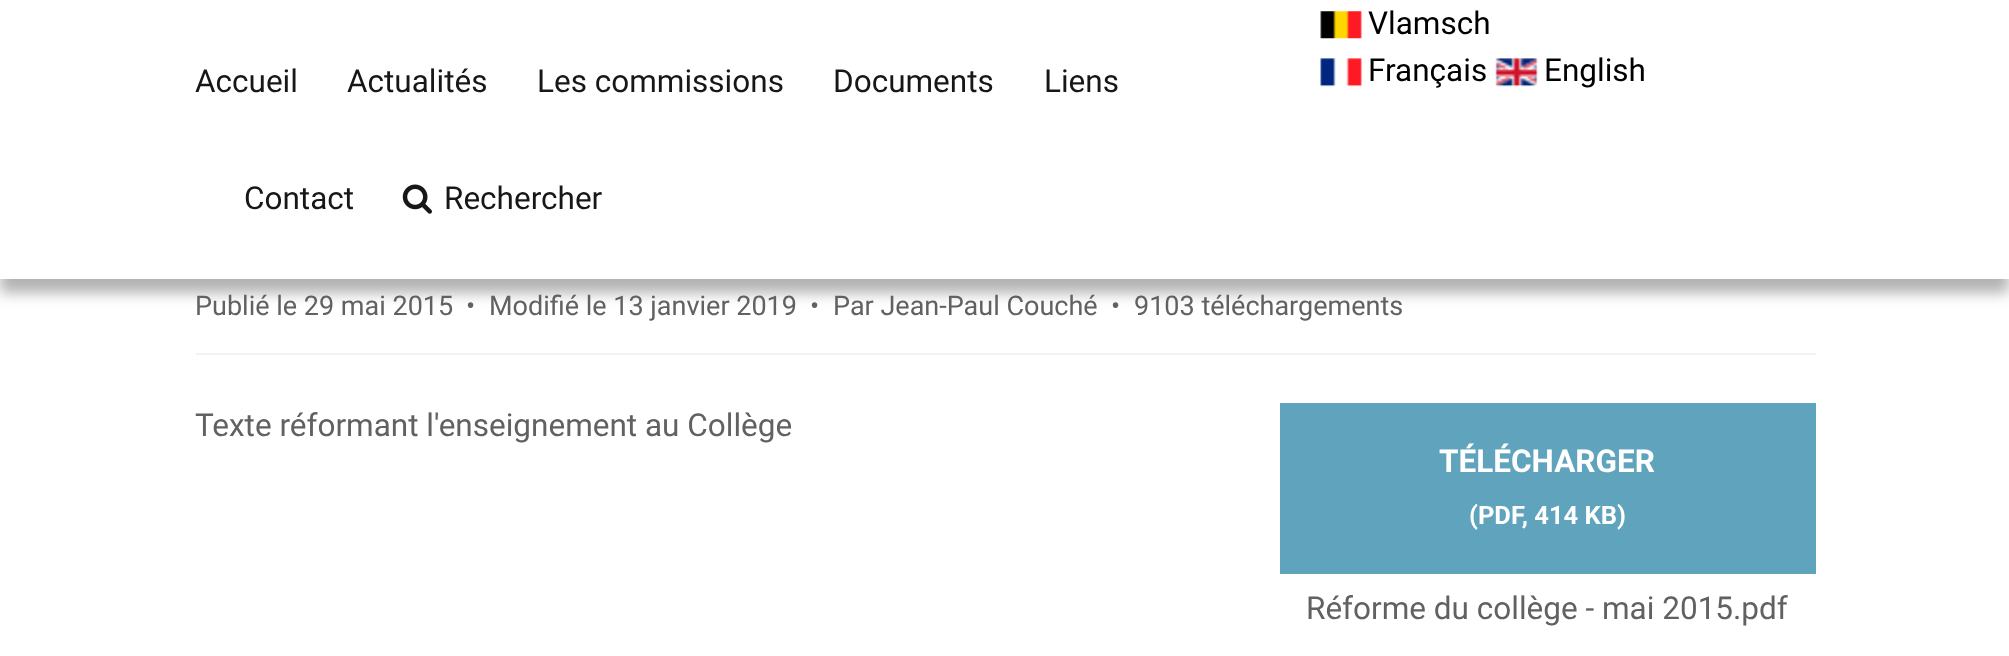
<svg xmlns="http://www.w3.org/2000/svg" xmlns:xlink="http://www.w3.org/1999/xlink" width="2009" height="656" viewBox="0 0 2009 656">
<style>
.cls-1{font:31.5px Roboto;fill:#000000}
.cls-2{font:31.5px Roboto;fill:#171717}
.cls-3{font:27px Roboto;fill:#616161}
.cls-4{font:31.5px Roboto;fill:#616161}
.cls-5{font:bold 31.5px Roboto;fill:#ffffff}
.cls-6{font:bold 25.5px Roboto;fill:#ffffff}
</style>
<rect width="100%" height="100%" fill="#ffffff"/>
<rect fill="#000000" fill-opacity="0.3" filter="blur(7px)" x="0" y="14" width="2009" height="279"/>
<rect fill="#ffffff" x="0" y="1" width="2009" height="278"/>
<image xlink:href="image0.png" x="1320" y="11" width="42" height="28"/>
<image xlink:href="image1.png" x="1320" y="58" width="42" height="29"/>
<image xlink:href="image2.png" x="1495" y="58" width="43" height="29"/>
<image xlink:href="image3.png" x="402" y="184" width="30" height="30"/>
<rect fill="#f2f2f2" x="196" y="353" width="1620" height="2"/>
<rect fill="#60a3bc" x="1280" y="403" width="536" height="171"/>
<text class="cls-1"><tspan x="1368" y="34">Vlamsch</tspan><tspan x="1368" y="81">Français</tspan></text>
<text class="cls-1" x="1544" y="81">English</text>
<text class="cls-2" x="195" y="92">Accueil</text>
<text class="cls-2" x="347" y="92">Actualités</text>
<text class="cls-2" x="537" y="92">Les commissions</text>
<text class="cls-2" x="833" y="92">Documents</text>
<text class="cls-2" x="1044" y="92">Liens</text>
<text class="cls-2" x="244" y="209">Contact</text>
<text class="cls-2" x="444" y="209">Rechercher</text>
<text class="cls-3" x="195" y="315">Publié le 29 mai 2015</text>
<text class="cls-3" x="466" y="315">•</text>
<text class="cls-3" x="489" y="315">Modifié le 13 janvier 2019</text>
<text class="cls-3" x="810" y="315">•</text>
<text class="cls-3" x="833" y="315">Par Jean-Paul Couché</text>
<text class="cls-3" x="1111" y="315">•</text>
<text class="cls-3" x="1134" y="315">9103 téléchargements</text>
<text class="cls-4" x="195" y="436">Texte réformant l'enseignement au Collège</text>
<text class="cls-5" x="1439" y="472">TÉLÉCHARGER</text>
<text class="cls-6" x="1469" y="524">(PDF, 414 KB)</text>
<text class="cls-4" x="1306" y="619">Réforme du collège - mai 2015.pdf</text>
</svg>
